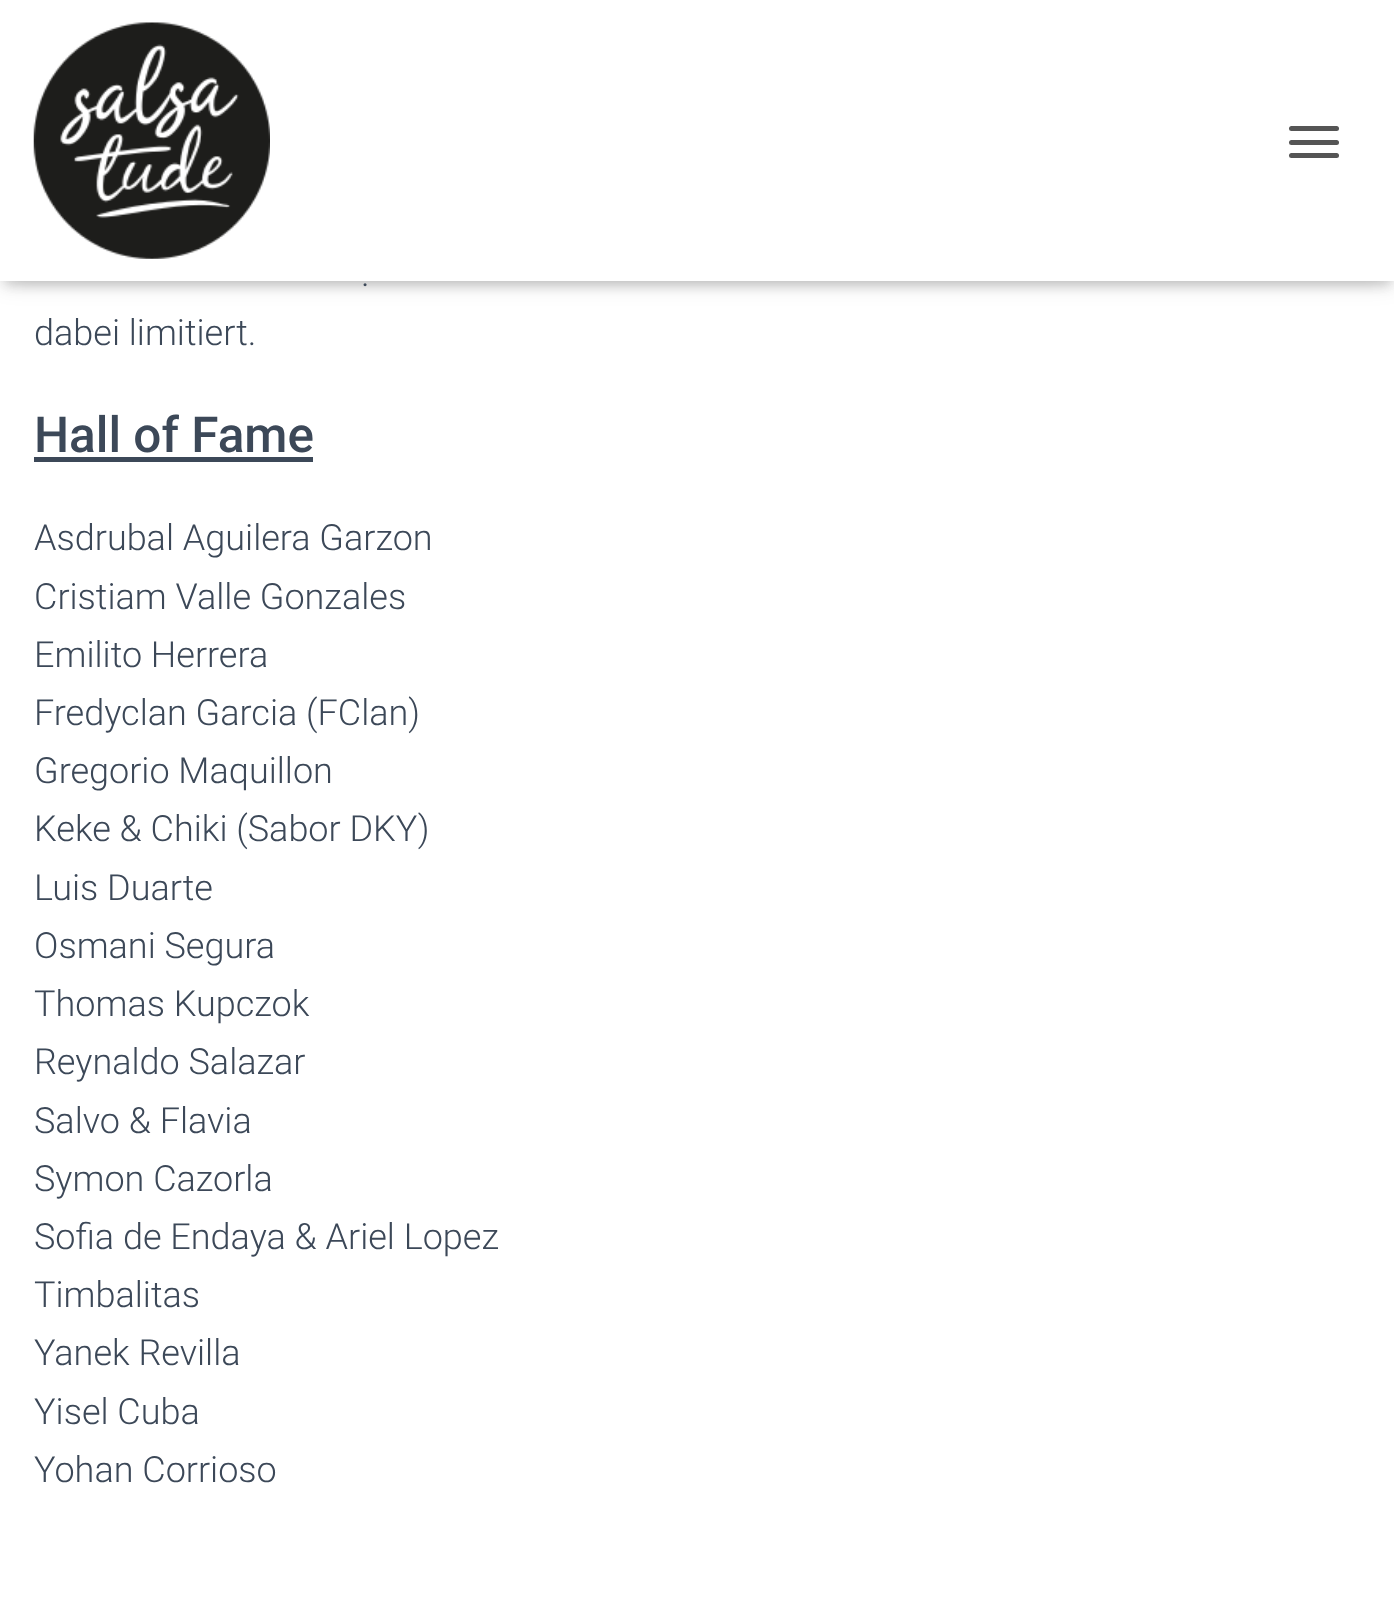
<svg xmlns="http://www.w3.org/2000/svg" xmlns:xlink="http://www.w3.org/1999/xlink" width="1394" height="1599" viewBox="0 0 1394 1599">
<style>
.cls-1{font:300 36px Roboto;fill:#3c4858}
.cls-2{font:500 49.5px Roboto;fill:#3c4858}
</style>
<rect width="100%" height="100%" fill="#ffffff"/>
<rect fill="#000000" fill-opacity="0.1" filter="blur(5.5px)" x="5" y="14" width="1386" height="272"/>
<rect fill="#000000" fill-opacity="0.12" filter="blur(11px)" x="0" y="2" width="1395" height="282"/>
<rect fill="#000000" fill-opacity="0.42" filter="blur(11px)" x="14" y="16" width="1368" height="254"/>
<rect fill="#ffffff" x="0" y="0" width="1394" height="281"/>
<image xlink:href="image0.png" x="33" y="22" width="237" height="237"/>
<rect fill="#555555" x="1289" y="126" width="50" height="5" rx="2.5"/>
<rect fill="#555555" x="1289" y="140" width="50" height="5" rx="2.5"/>
<rect fill="#555555" x="1289" y="153" width="50" height="5" rx="2.5"/>
<rect fill="#3c4858" x="34" y="457" width="279" height="5"/>
<text class="cls-1" x="361" y="286">.</text>
<text class="cls-1" x="34" y="345">dabei limitiert.</text>
<text class="cls-2" x="34" y="452">Hall of Fame</text>
<text class="cls-1"><tspan x="34" y="550">Asdrubal Aguilera Garzon</tspan><tspan x="34" y="609">Cristiam Valle Gonzales</tspan><tspan x="34" y="667">Emilito Herrera</tspan><tspan x="34" y="725">Fredyclan Garcia (FClan)</tspan><tspan x="34" y="783">Gregorio Maquillon</tspan><tspan x="34" y="841">Keke &amp; Chiki (Sabor DKY)</tspan><tspan x="34" y="900">Luis Duarte</tspan><tspan x="34" y="958">Osmani Segura</tspan><tspan x="34" y="1016">Thomas Kupczok</tspan><tspan x="34" y="1074">Reynaldo Salazar</tspan><tspan x="34" y="1133">Salvo &amp; Flavia</tspan><tspan x="34" y="1191">Symon Cazorla</tspan><tspan x="34" y="1249">Sofia de Endaya &amp; Ariel Lopez</tspan><tspan x="34" y="1307">Timbalitas</tspan><tspan x="34" y="1365">Yanek Revilla</tspan><tspan x="34" y="1424">Yisel Cuba</tspan><tspan x="34" y="1482">Yohan Corrioso</tspan></text>
</svg>
